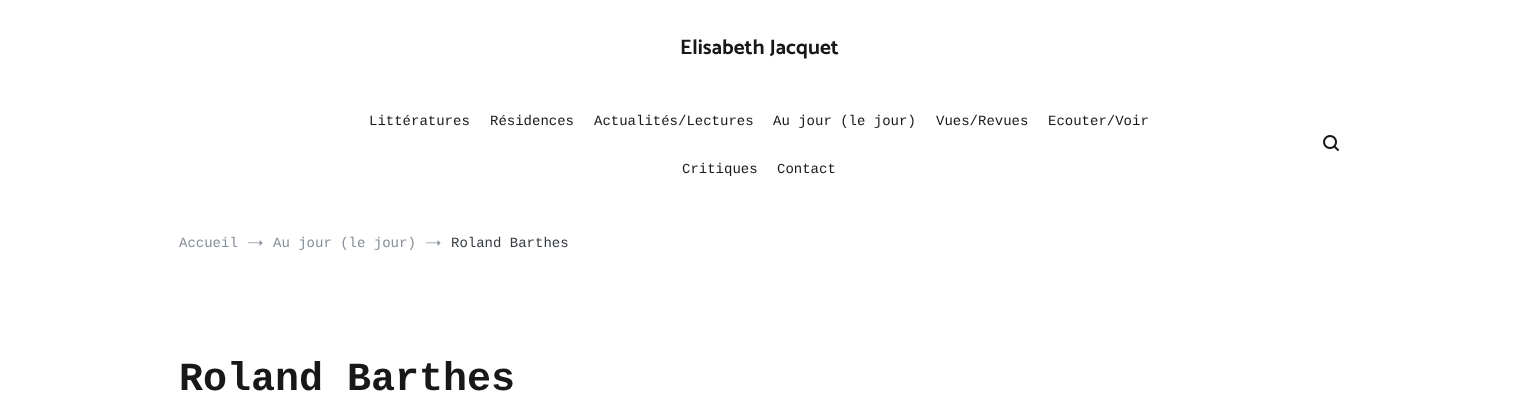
<svg xmlns="http://www.w3.org/2000/svg" xmlns:xlink="http://www.w3.org/1999/xlink" width="1518" height="399" viewBox="0 0 1518 399">
<style>
.cls-1{font:bold 21px Catamaran;fill:#16181a}
.cls-2{font:14px Liberation Mono;fill:#16181a}
.cls-3{font:14px Liberation Mono;fill:#868e96}
.cls-4{font:14px Liberation Mono;fill:#363b40}
.cls-5{font:bold 40px Liberation Mono;fill:#16181a}
</style>
<rect width="100%" height="100%" fill="#ffffff"/>
<image xlink:href="image0.png" x="1323" y="135" width="16" height="16"/>
<image xlink:href="image1.png" x="248" y="240" width="15" height="6"/>
<image xlink:href="image1.png" x="426" y="240" width="15" height="6"/>
<text class="cls-1" x="680" y="54">Elisabeth Jacquet</text>
<text class="cls-2" x="369" y="125">Littératures</text>
<text class="cls-2" x="490" y="125">Résidences</text>
<text class="cls-2" x="594" y="125">Actualités/Lectures</text>
<text class="cls-2" x="773" y="125">Au jour (le jour)</text>
<text class="cls-2" x="936" y="125">Vues/Revues</text>
<text class="cls-2" x="1048" y="125">Ecouter/Voir</text>
<text class="cls-2" x="682" y="173">Critiques</text>
<text class="cls-2" x="777" y="173">Contact</text>
<text class="cls-3" x="179" y="247">Accueil</text>
<text class="cls-3" x="273" y="247">Au jour (le jour)</text>
<text class="cls-4" x="451" y="247">Roland Barthes</text>
<text class="cls-5" x="179" y="390">Roland Barthes</text>
</svg>
